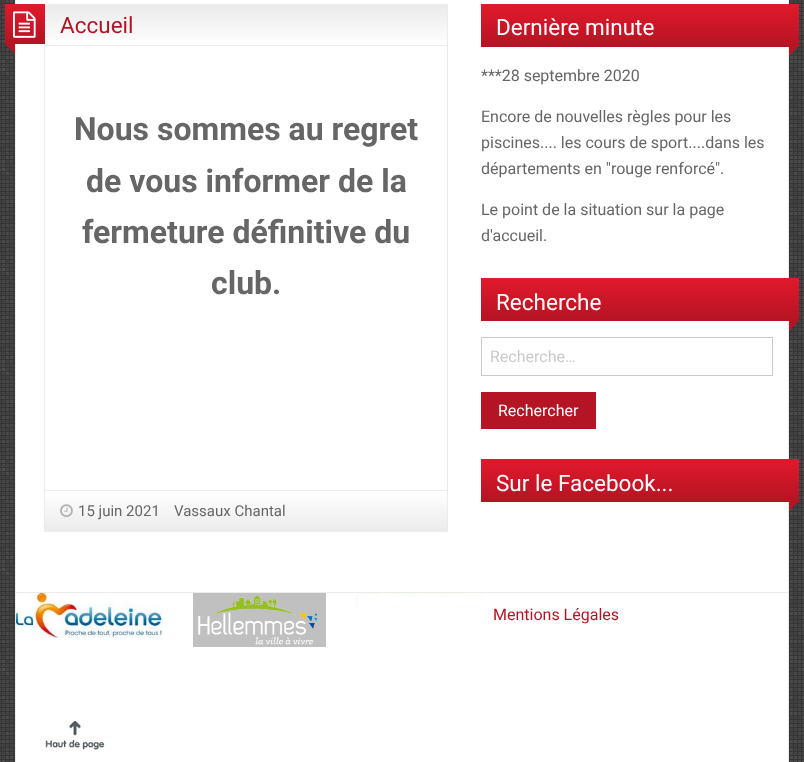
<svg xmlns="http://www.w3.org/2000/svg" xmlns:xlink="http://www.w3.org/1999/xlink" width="804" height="762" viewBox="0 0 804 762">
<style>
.cls-1{font:22.5px Roboto;fill:#b41423}
.cls-2{font:bold 32px Roboto;fill:#666666}
.cls-3{font:15px Roboto;fill:#666666}
.cls-4{font:22.5px Roboto;fill:#ffffff}
.cls-5{font:16px Roboto;fill:#666666}
.cls-6{font:16px Roboto;fill:#cacaca}
.cls-7{font:16px Roboto;fill:#ffffff}
.cls-8{font:16px Roboto;fill:#b41423}
</style>
<defs>
<linearGradient id="g1" gradientUnits="userSpaceOnUse" x1="5" y1="4" x2="5" y2="44"><stop offset="0" stop-color="#e2192c"/><stop offset="1" stop-color="#b41423"/></linearGradient>
<linearGradient id="g2" gradientUnits="userSpaceOnUse" x1="45" y1="5" x2="45" y2="45"><stop offset="0" stop-color="#ebebeb"/><stop offset="1" stop-color="#ffffff"/></linearGradient>
<linearGradient id="g3" gradientUnits="userSpaceOnUse" x1="45" y1="45" x2="45" y2="85"><stop offset="0" stop-color="#ebebeb"/><stop offset="1" stop-color="#ffffff"/></linearGradient>
<linearGradient id="g4" gradientUnits="userSpaceOnUse" x1="45" y1="451" x2="45" y2="491"><stop offset="0" stop-color="#ffffff"/><stop offset="1" stop-color="#ebebeb"/></linearGradient>
<linearGradient id="g5" gradientUnits="userSpaceOnUse" x1="45" y1="491" x2="45" y2="531"><stop offset="0" stop-color="#ffffff"/><stop offset="1" stop-color="#ebebeb"/></linearGradient>
<linearGradient id="g6" gradientUnits="userSpaceOnUse" x1="481" y1="4" x2="481" y2="47"><stop offset="0" stop-color="#e2192c"/><stop offset="1" stop-color="#b41423"/></linearGradient>
<linearGradient id="g7" gradientUnits="userSpaceOnUse" x1="481" y1="278" x2="481" y2="321"><stop offset="0" stop-color="#e2192c"/><stop offset="1" stop-color="#b41423"/></linearGradient>
<linearGradient id="g8" gradientUnits="userSpaceOnUse" x1="481" y1="459" x2="481" y2="502"><stop offset="0" stop-color="#e2192c"/><stop offset="1" stop-color="#b41423"/></linearGradient>
</defs>
<rect width="100%" height="100%" fill="#ffffff"/>
<image xlink:href="image0.png" x="0" y="0" width="804" height="762"/>
<rect fill="#ffffff" stroke="#ebebeb" x="15.5" y="-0.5" width="773" height="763"/>
<rect fill="none" stroke="#ebebeb" x="44.5" y="4.5" width="403" height="527"/>
<rect fill="url(#g1)" x="5" y="4" width="40" height="40"/>
<image xlink:href="image1.png" x="13" y="11" width="23" height="27"/>
<path fill="#b41423" d="M5 44H15V54Z"/>
<rect fill="url(#g2)" x="45" y="5" width="402" height="35"/>
<rect fill="url(#g3)" x="45" y="45" width="402" height="1"/>
<rect fill="url(#g4)" x="45" y="490" width="402" height="1"/>
<rect fill="url(#g5)" x="45" y="496" width="402" height="35"/>
<image xlink:href="image2.png" x="60" y="504" width="13" height="13"/>
<rect fill="url(#g6)" x="481" y="4" width="318" height="43"/>
<path fill="#b41423" d="M789 46H799L789 56Z"/>
<rect fill="url(#g7)" x="481" y="278" width="318" height="43"/>
<path fill="#b41423" d="M789 321H799L789 331Z"/>
<rect fill="none" stroke="#cacaca" x="481.5" y="337.5" width="291" height="38"/>
<rect fill="#b41423" x="481" y="392" width="115" height="37"/>
<rect fill="url(#g8)" x="481" y="459" width="318" height="43"/>
<path fill="#b41423" d="M789 501H799L789 511Z"/>
<rect fill="#ebebeb" x="16" y="592" width="772" height="1"/>
<image xlink:href="image3.png" x="16" y="593" width="147" height="45"/>
<image xlink:href="image4.png" x="193" y="593" width="133" height="54"/>
<image xlink:href="image5.png" x="356" y="593" width="128" height="16"/>
<image xlink:href="image6.png" x="45" y="721" width="60" height="29"/>
<text class="cls-1" x="60" y="33">Accueil</text>
<text class="cls-2" x="74" y="140">Nous sommes au regret</text>
<text class="cls-2" x="86" y="192">de vous informer de la</text>
<text class="cls-2" x="82" y="243">fermeture définitive du</text>
<text class="cls-2" x="211" y="294">club.</text>
<text class="cls-3" x="78" y="516">15 juin 2021</text>
<text class="cls-3" x="174" y="516">Vassaux Chantal</text>
<text class="cls-4" x="496" y="35">Dernière minute</text>
<text class="cls-5" x="481" y="81">***28 septembre 2020</text>
<text class="cls-5"><tspan x="481" y="122">Encore de nouvelles règles pour les</tspan><tspan x="481" y="148">piscines.... les cours de sport....dans les</tspan><tspan x="481" y="174">départements en "rouge renforcé".</tspan></text>
<text class="cls-5"><tspan x="481" y="215">Le point de la situation sur la page</tspan><tspan x="481" y="241">d'accueil.</tspan></text>
<text class="cls-4" x="496" y="310">Recherche</text>
<text class="cls-6" x="490" y="362">Recherche…</text>
<text class="cls-7" x="498" y="416">Rechercher</text>
<text class="cls-4" x="496" y="491">Sur le Facebook...</text>
<text class="cls-8" x="493" y="620">Mentions Légales</text>
</svg>
